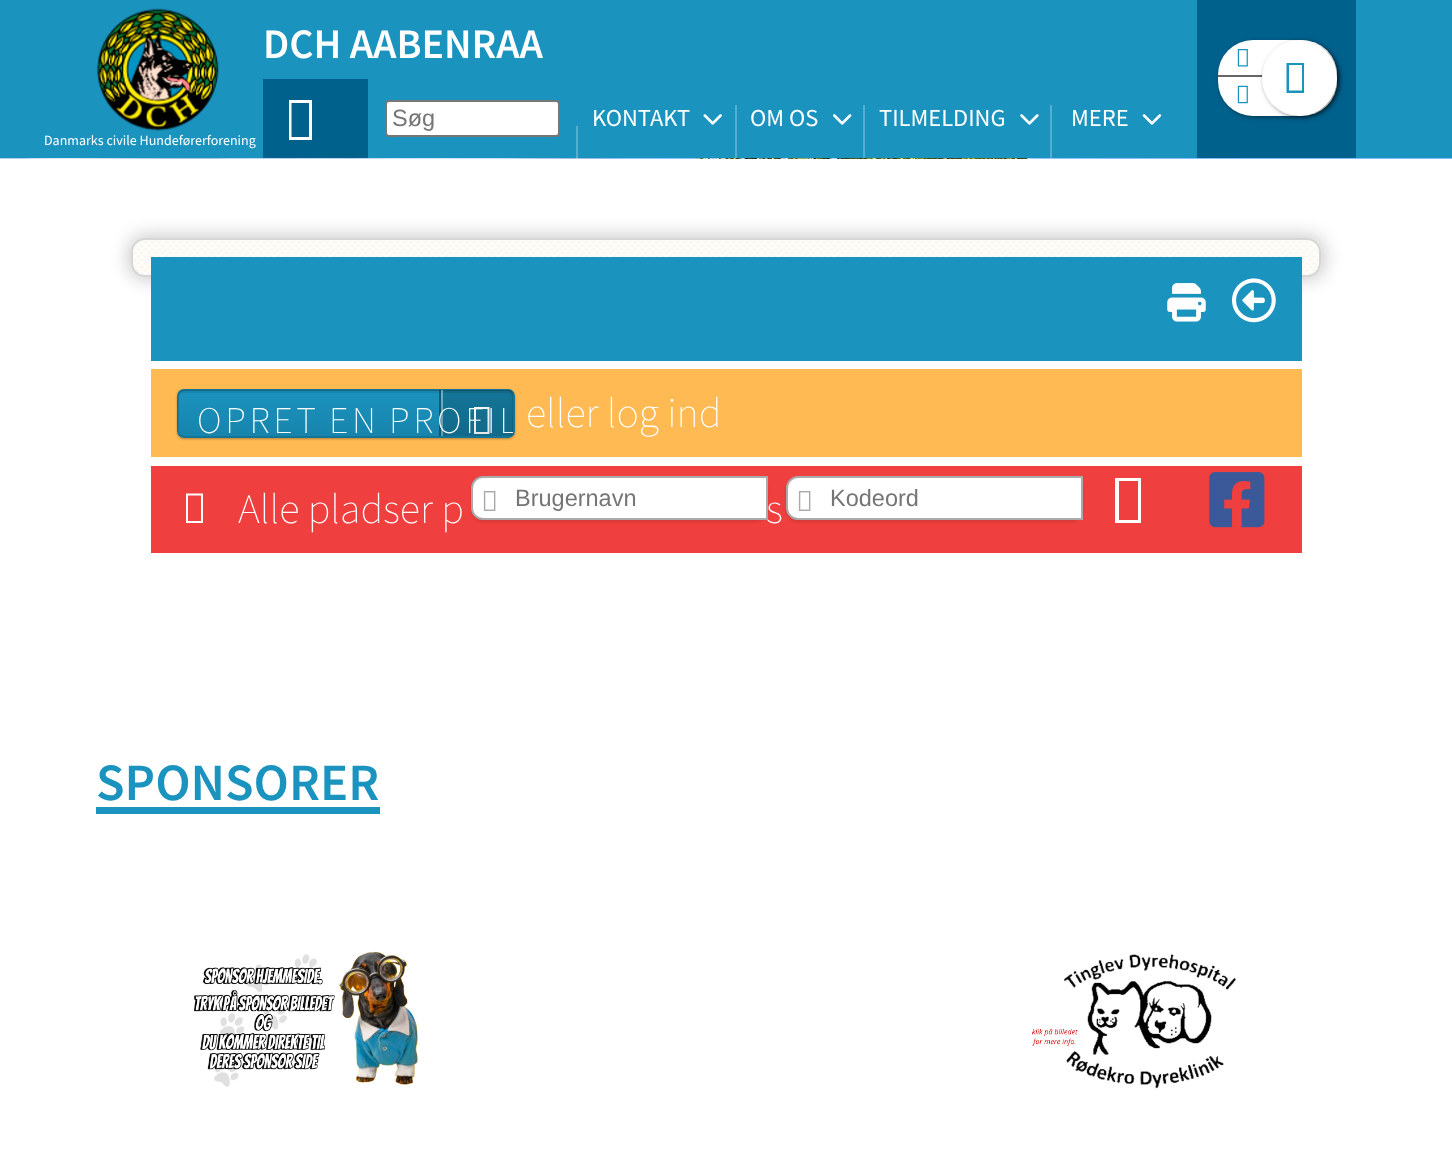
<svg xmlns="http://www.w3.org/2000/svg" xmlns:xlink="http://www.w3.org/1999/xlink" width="1452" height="1151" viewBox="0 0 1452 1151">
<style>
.cls-1{font:600 42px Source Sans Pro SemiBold;fill:#ffffff}
.cls-2{font:14px Source Sans Pro;fill:#ffffff}
.cls-3{font:23.5px Liberation Sans;fill:#757575}
.cls-4{font:24.5px Source Sans Pro;fill:#ffffff}
.cls-5{font:200 37.75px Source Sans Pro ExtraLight;letter-spacing:3.75px;fill:#ffffff}
.cls-6{font:200 42px Source Sans Pro ExtraLight;fill:#ffffff}
.cls-7{font:600 52.5px Source Sans Pro SemiBold;fill:#1a93bf}
</style>
<defs>
<clipPath id="clip1"><rect x="1218" y="40" width="119" height="76" rx="35"/></clipPath>
<clipPath id="clip2"><path d="M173 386H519V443H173ZM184 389H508C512 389 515 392 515 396V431C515 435 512 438 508 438H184C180 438 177 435 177 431V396C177 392 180 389 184 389Z" clip-rule="evenodd"/></clipPath>
<linearGradient id="g1" gradientUnits="userSpaceOnUse" x1="346" y1="390" x2="346" y2="436"><stop offset="0" stop-color="#000000" stop-opacity="0"/><stop offset="1" stop-color="#000000" stop-opacity="0.1"/></linearGradient>
<clipPath id="clip3"><rect x="179" y="390" width="334" height="46" rx="4"/></clipPath>
</defs>
<rect width="100%" height="100%" fill="#ffffff"/>
<rect fill="#1a93bf" x="0" y="0" width="1452" height="158"/>
<image xlink:href="image0.png" x="96" y="8" width="123" height="123"/>
<rect fill="#00618d" x="263" y="79" width="105" height="79"/>
<path fill="#ffffff" d="M289 140V100H312V140ZM291.5 137H309V103H291.5Z"/>
<rect fill="#ffffff" stroke="#767676" stroke-width="2" x="386" y="101" width="173" height="35" rx="3"/>
<image xlink:href="image7.png" x="0" y="158" width="1452" height="1"/>
<rect fill="#ffffff" fill-opacity="0.25" x="576" y="126" width="2" height="33"/>
<image xlink:href="image1.png" x="703" y="114" width="19" height="11"/>
<rect fill="#53aecf" x="735" y="105" width="2" height="53"/>
<image xlink:href="image2.png" x="833" y="114" width="19" height="11"/>
<rect fill="#53aecf" x="863" y="105" width="2" height="53"/>
<image xlink:href="image3.png" x="1020" y="114" width="19" height="11"/>
<rect fill="#53aecf" x="1050" y="105" width="2" height="53"/>
<image xlink:href="image4.png" x="1142" y="114" width="20" height="11"/>
<rect fill="#00618d" x="1197" y="0" width="159" height="158"/>
<rect fill="#000000" fill-opacity="0.5" filter="blur(2.5px)" x="1220" y="42" width="119" height="75" rx="35"/>
<rect fill="#ffffff" x="1218" y="40" width="119" height="76" rx="35"/>
<rect fill="#666666" x="1218" y="75" width="45" height="2"/>
<image xlink:href="image5.png" x="1237" y="49" width="11" height="18"/>
<g clip-path="url(#clip1)">
<rect fill="#ffffff" x="1278" y="42" width="59" height="35"/>
</g>
<image xlink:href="image6.png" x="1237" y="85" width="11" height="19"/>
<g clip-path="url(#clip1)">
<rect fill="#ffffff" x="1278" y="79" width="59" height="35"/>
</g>
<rect fill="#000000" fill-opacity="0.5" filter="blur(2.5px)" x="1264" y="42" width="75" height="75" rx="37.5"/>
<rect fill="#ffffff" x="1262" y="40" width="75" height="76" rx="37.5"/>
<path fill="#1a93bf" d="M1286.5 93V63H1304V93ZM1289 90.5H1302V65H1289Z"/>
<rect fill="#000000" fill-opacity="0.2" filter="blur(9px)" x="128" y="235" width="1197" height="45" rx="18"/>
<image xlink:href="image8.png" x="131" y="238" width="1190" height="38"/>
<rect fill="none" stroke="#d6d6d6" stroke-width="2" x="132" y="239" width="1188" height="37" rx="13"/>
<rect fill="#1a93bf" x="151" y="257" width="1151" height="104"/>
<image xlink:href="image9.png" x="1167" y="283" width="39" height="39"/>
<image xlink:href="image10.png" x="1232" y="278" width="44" height="45"/>
<rect fill="#ffba53" x="151" y="369" width="1151" height="88"/>
<g clip-path="url(#clip2)">
<rect fill="#000000" fill-opacity="0.3" filter="blur(1px)" x="177" y="390" width="338" height="49" rx="7"/>
</g>
<rect fill="#1a93bf" x="177" y="389" width="338" height="49" rx="7"/>
<path fill="#1784ac" d="M184 393H507C510 393 512 395 512 397V432C512 434 511 435 511 436C512 435 513 434 513 432V394C513 392 511 390 509 390H183C181 390 179 392 179 394V397C179 395 181 393 184 393Z"/>
<rect fill="none" stroke="#000000" stroke-opacity="0.2" stroke-width="2" x="178" y="390" width="336" height="47" rx="6"/>
<path fill="#000000" fill-opacity="0.2" d="M439 390H509C511 390 513 392 513 394V432C513 434 511 436 509 436H439Z"/>
<rect fill="#ffffff" fill-opacity="0.4" x="441" y="390" width="2" height="46"/>
<rect fill="#000000" fill-opacity="0.2" x="439" y="390" width="2" height="46"/>
<path fill="#ffffff" d="M474 434V407H489.5V434ZM476 432H487.5V409H476Z"/>
<rect fill="url(#g1)" x="179" y="390" width="334" height="46" rx="4"/>
<rect fill="#ef3f3f" x="151" y="466" width="1151" height="87"/>
<rect fill="#000000" fill-opacity="0.1" filter="blur(1px)" x="471" y="478" width="297" height="44" rx="12"/>
<path fill="#ffffff" stroke="#aaaaaa" stroke-width="2" d="M483 477H767V519H483C477 519 472 514 472 508V488C472 482 477 477 483 477Z"/>
<image xlink:href="image11.png" x="483" y="491" width="13" height="20"/>
<rect fill="#000000" fill-opacity="0.1" filter="blur(1px)" x="786" y="478" width="297" height="44" rx="12"/>
<path fill="#ffffff" stroke="#aaaaaa" stroke-width="2" d="M798 477H1082V519H798C792 519 787 514 787 508V488C787 482 792 477 798 477Z"/>
<image xlink:href="image11.png" x="798" y="491" width="13" height="20"/>
<path fill="#ffffff" d="M1115 523V478H1141V523ZM1119 520H1138V481H1119Z"/>
<image xlink:href="image12.png" x="1209" y="472" width="56" height="56"/>
<path fill="#ffffff" d="M186 523V493.5H203V523ZM188 521H201V495.5H188Z"/>
<rect fill="#1a93bf" x="96" y="807" width="284" height="7"/>
<image xlink:href="image13.png" x="193" y="951" width="225" height="136"/>
<image xlink:href="image14.png" x="1032" y="954" width="204" height="135"/>
<text class="cls-1" x="263" y="58">DCH AABENRAA</text>
<text class="cls-2" x="44" y="145">Danmarks civile Hundeførerforening</text>
<text class="cls-3" x="392" y="126">Søg</text>
<text class="cls-4" x="592" y="126">KONTAKT</text>
<text class="cls-4" x="750" y="126">OM OS</text>
<text class="cls-4" x="879" y="126">TILMELDING</text>
<text class="cls-4" x="1071" y="126">MERE</text>
<g clip-path="url(#clip3)">
<text class="cls-5" x="197" y="433" word-spacing="-2">OPRET EN PROFIL</text>
</g>
<text class="cls-6" x="526" y="427">eller log ind</text>
<text class="cls-3" x="515" y="506">Brugernavn</text>
<text class="cls-3" x="830" y="506">Kodeord</text>
<text class="cls-6" x="238" y="523">Alle pladser p</text>
<text class="cls-6" x="766" y="523">s</text>
<text class="cls-7" x="96" y="800">SPONSORER</text>
</svg>
